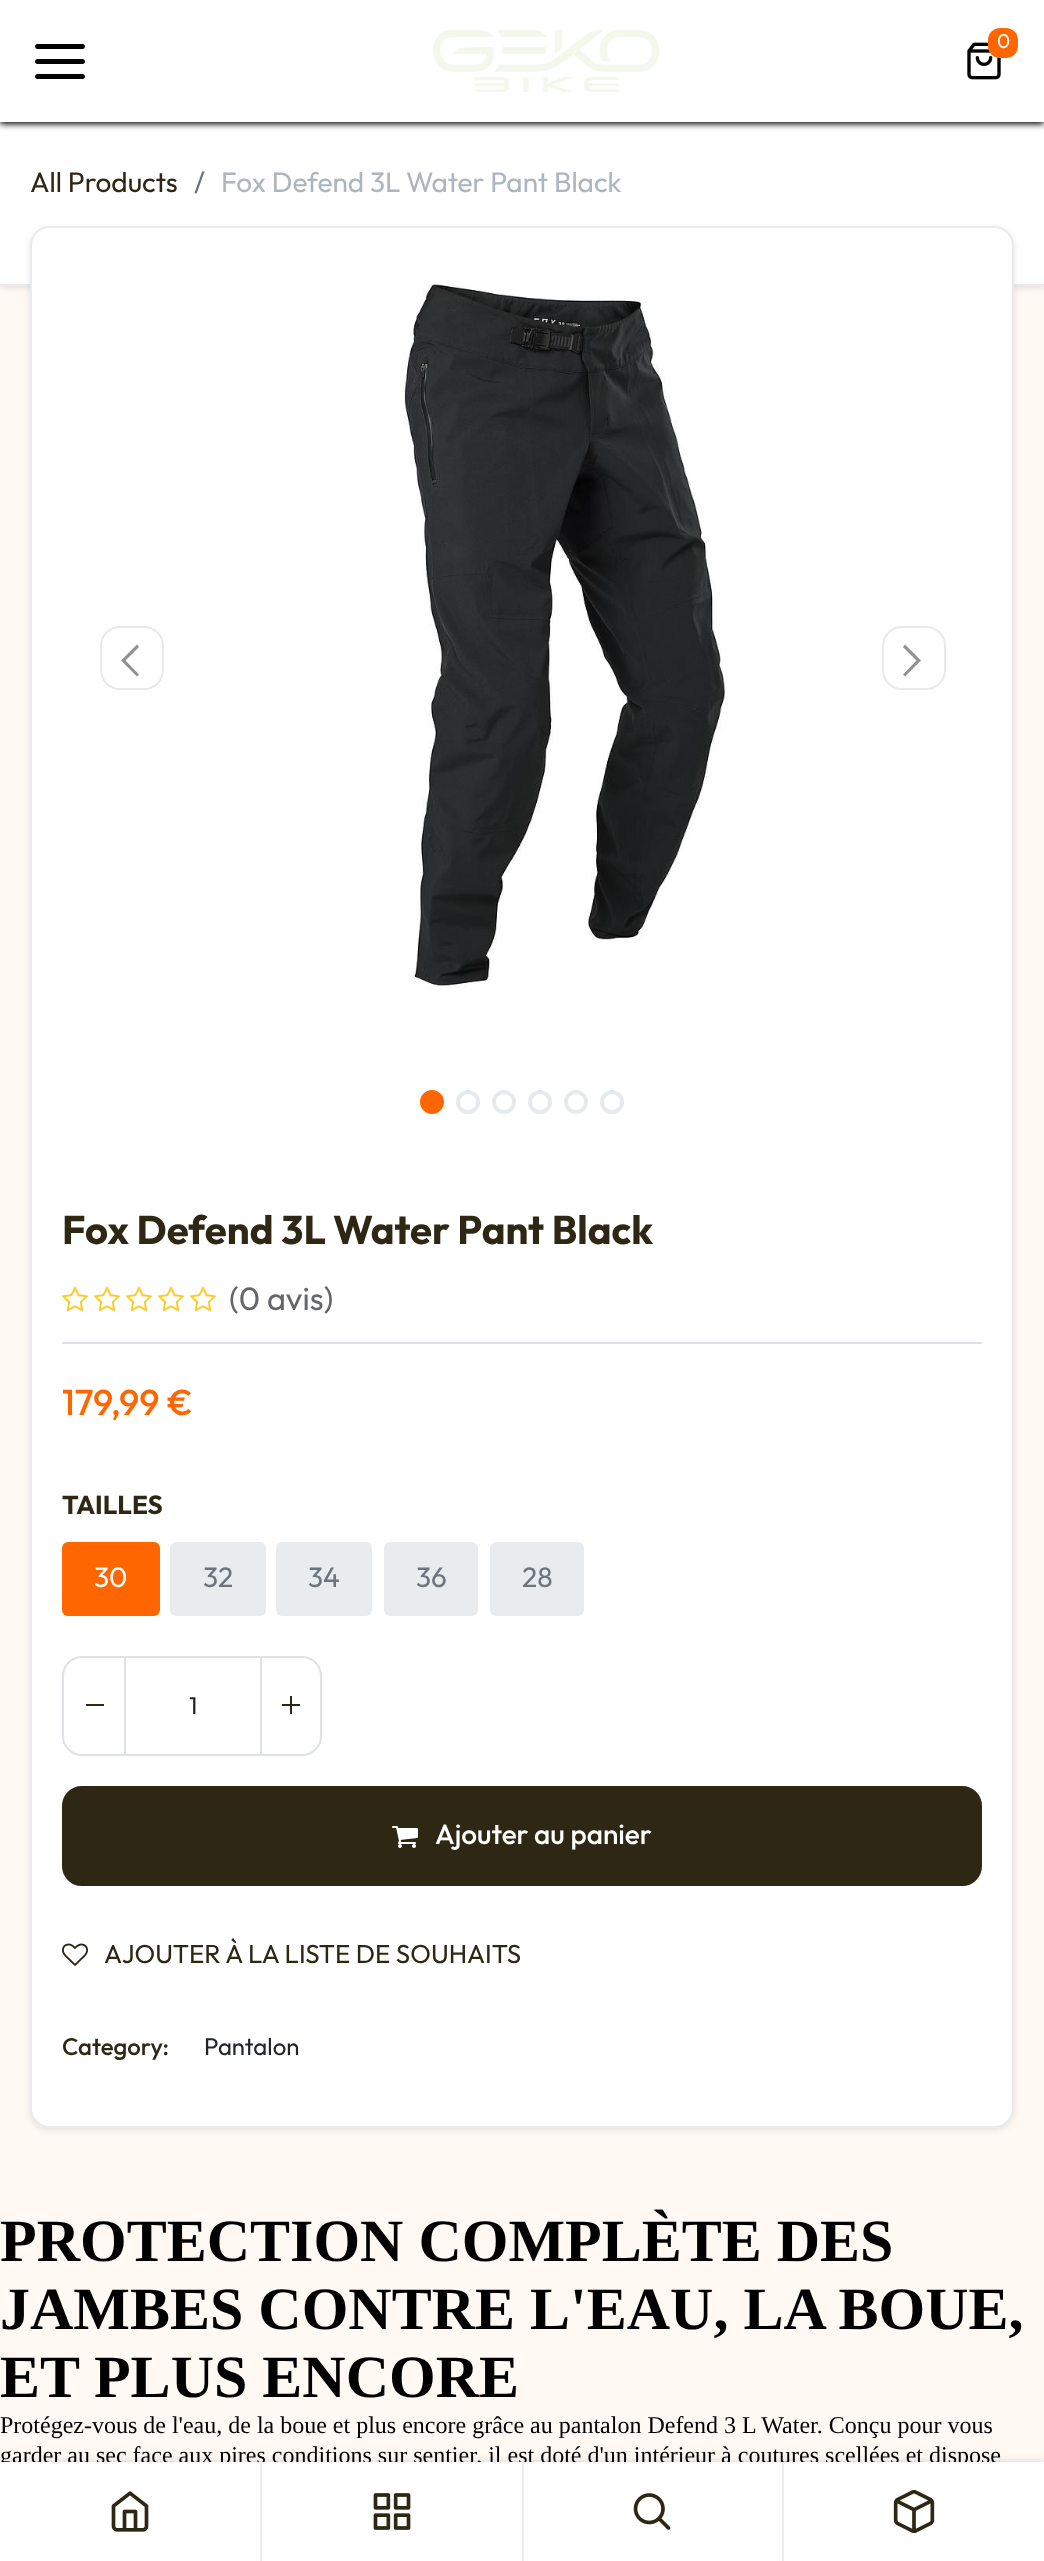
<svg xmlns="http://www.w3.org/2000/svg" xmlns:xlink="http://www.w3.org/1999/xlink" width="1044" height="2561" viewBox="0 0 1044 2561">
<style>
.cls-1{font:20px Outfit;fill:#ffffff}
.cls-2{font:28px Outfit;fill:#2e2714}
.cls-3{font:28px Outfit;fill:#6c757d}
.cls-4{font:28px Outfit;fill:#adb5bd}
.cls-5{font:bold 40px Outfit;fill:#2e2714}
.cls-6{font:32.5px Outfit;fill:#646669}
.cls-7{font:500 36px Outfit;fill:#ff6600}
.cls-8{font:bold 26px Outfit;fill:#2e2714}
.cls-9{font:28px Outfit;fill:#ffffff}
.cls-10{font:24px Outfit;fill:#212529}
.cls-11{font:500 28px Outfit;fill:#ffffff}
.cls-12{font:26px Outfit;fill:#2e2714}
.cls-13{font:500 24px Outfit;fill:#2e2714}
.cls-14{font:bold 60px Liberation Serif;fill:#000000}
.cls-15{font:24px Liberation Serif;fill:#000000}
</style>
<rect width="100%" height="100%" fill="#fff8f3"/>
<rect fill="#000000" fill-opacity="0.1" filter="blur(3px)" x="0" y="124" width="1044" height="164"/>
<rect fill="#ffffff" x="0" y="122" width="1044" height="162"/>
<rect fill="#000000" filter="blur(3px)" x="0" y="2" width="1044" height="122"/>
<rect fill="#ffffff" x="0" y="0" width="1044" height="122"/>
<image xlink:href="image0.png" x="432" y="30" width="228" height="62"/>
<image xlink:href="image1.png" x="967" y="42" width="34" height="38"/>
<rect fill="#ff6600" x="988" y="28" width="30" height="30" rx="12"/>
<image xlink:href="image2.png" x="35" y="44" width="50" height="35"/>
<rect fill="#e9ecef" x="0" y="284" width="1044" height="2"/>
<rect fill="#000000" fill-opacity="0.1" filter="blur(3px)" x="30" y="228" width="984" height="1902" rx="20"/>
<rect fill="#ffffff" stroke="#e9ecef" stroke-width="2" x="31" y="227" width="982" height="1900" rx="19"/>
<rect fill="none" stroke="#e7eaed" stroke-width="2" x="101" y="627" width="62" height="62" rx="19"/>
<path fill="#909294" d="M121 660.5L137 644.5L139 647L125.5 660.5L139 674.5L137 676.5Z"/>
<image xlink:href="image3.png" x="403" y="283" width="325" height="706"/>
<rect fill="none" stroke="#e7eaed" stroke-width="2" x="883" y="627" width="62" height="62" rx="19"/>
<path fill="#909294" d="M921 660.5L905 676.5L903 674.5L916.5 660.5L903 647L905 644.5Z"/>
<circle fill="#ff6600" stroke="#ff6600" stroke-width="4" cx="432" cy="1102" r="10"/>
<circle fill="none" stroke="#e7eaed" stroke-width="4" cx="468" cy="1102" r="10"/>
<circle fill="none" stroke="#e7eaed" stroke-width="4" cx="504" cy="1102" r="10"/>
<circle fill="none" stroke="#e7eaed" stroke-width="4" cx="540" cy="1102" r="10"/>
<circle fill="none" stroke="#e7eaed" stroke-width="4" cx="576" cy="1102" r="10"/>
<circle fill="none" stroke="#e7eaed" stroke-width="4" cx="612" cy="1102" r="10"/>
<rect fill="#dee2e6" x="62" y="1342" width="920" height="2"/>
<image xlink:href="image4.png" x="62" y="1286" width="26" height="26"/>
<image xlink:href="image4.png" x="94" y="1286" width="26" height="26"/>
<image xlink:href="image4.png" x="126" y="1286" width="26" height="26"/>
<image xlink:href="image4.png" x="158" y="1286" width="26" height="26"/>
<image xlink:href="image4.png" x="190" y="1286" width="26" height="26"/>
<rect fill="#ff6600" x="62" y="1542" width="98" height="74" rx="6"/>
<rect fill="#e9ecef" x="170" y="1542" width="96" height="74" rx="6"/>
<rect fill="#e9ecef" x="276" y="1542" width="96" height="74" rx="6"/>
<rect fill="#e9ecef" x="384" y="1542" width="94" height="74" rx="6"/>
<rect fill="#e9ecef" x="490" y="1542" width="94" height="74" rx="6"/>
<rect fill="none" stroke="#dee2e6" stroke-width="2" x="63" y="1657" width="258" height="98" rx="19"/>
<rect fill="#2e2714" x="86" y="1704" width="18" height="2"/>
<rect fill="#dee2e6" x="260" y="1658" width="2" height="96"/>
<rect fill="#dee2e6" x="124" y="1658" width="2" height="96"/>
<rect fill="#2e2714" x="282" y="1704" width="18" height="2"/>
<rect fill="#2e2714" x="290" y="1696" width="2" height="18"/>
<rect fill="#2e2714" stroke="#2e2714" stroke-width="2" x="63" y="1787" width="918" height="98" rx="19"/>
<image xlink:href="image5.png" x="392" y="1826" width="26" height="22"/>
<image xlink:href="image6.png" x="62" y="1943" width="26" height="23"/>
<rect fill="#000000" fill-opacity="0.1" filter="blur(3px)" x="0" y="2460" width="1044" height="100"/>
<text class="cls-1" x="997" y="48">0</text>
<text class="cls-2" x="30" y="192">All Products</text>
<text class="cls-3" x="194" y="192">/</text>
<text class="cls-4" x="221" y="192">Fox Defend 3L Water Pant Black</text>
<text class="cls-5" x="62" y="1244">Fox Defend 3L Water Pant Black</text>
<text class="cls-6" x="229" y="1310">(0 avis)</text>
<text class="cls-7" x="62" y="1415">179,99 €</text>
<text class="cls-8" x="62" y="1514">TAILLES</text>
<text class="cls-9" x="94" y="1587">30</text>
<text class="cls-3" x="203" y="1587">32</text>
<text class="cls-3" x="308" y="1587">34</text>
<text class="cls-3" x="416" y="1587">36</text>
<text class="cls-3" x="522" y="1587">28</text>
<text class="cls-10" x="189" y="1714">1</text>
<text class="cls-11" x="435" y="1844">Ajouter au panier</text>
<text class="cls-12" x="104" y="1963">AJOUTER À LA LISTE DE SOUHAITS</text>
<text class="cls-13" x="62" y="2055">Category:</text>
<text class="cls-10" x="204" y="2055">Pantalon</text>
<text class="cls-14"><tspan x="0" y="2261">PROTECTION COMPLÈTE DES</tspan><tspan x="0" y="2329">JAMBES CONTRE L'EAU, LA BOUE,</tspan><tspan x="0" y="2397">ET PLUS ENCORE</tspan></text>
<text class="cls-15"><tspan x="0" y="2433">Protégez-vous de l'eau, de la boue et plus encore grâce au pantalon Defend 3 L Water. Conçu pour vous</tspan><tspan x="0" y="2463">garder au sec face aux pires conditions sur sentier, il est doté d'un intérieur à coutures scellées et dispose</tspan></text>
<rect fill="#ffffff" x="0" y="2462" width="1044" height="99"/>
<image xlink:href="image7.png" x="111" y="2491" width="38" height="41"/>
<rect fill="#eeeeee" x="260" y="2462" width="2" height="99"/>
<image xlink:href="image8.png" x="373" y="2493" width="38" height="37"/>
<rect fill="#eeeeee" x="522" y="2462" width="2" height="99"/>
<image xlink:href="image9.png" x="633" y="2493" width="38" height="37"/>
<rect fill="#eeeeee" x="782" y="2462" width="2" height="99"/>
<image xlink:href="image10.png" x="893" y="2489" width="42" height="45"/>
</svg>
